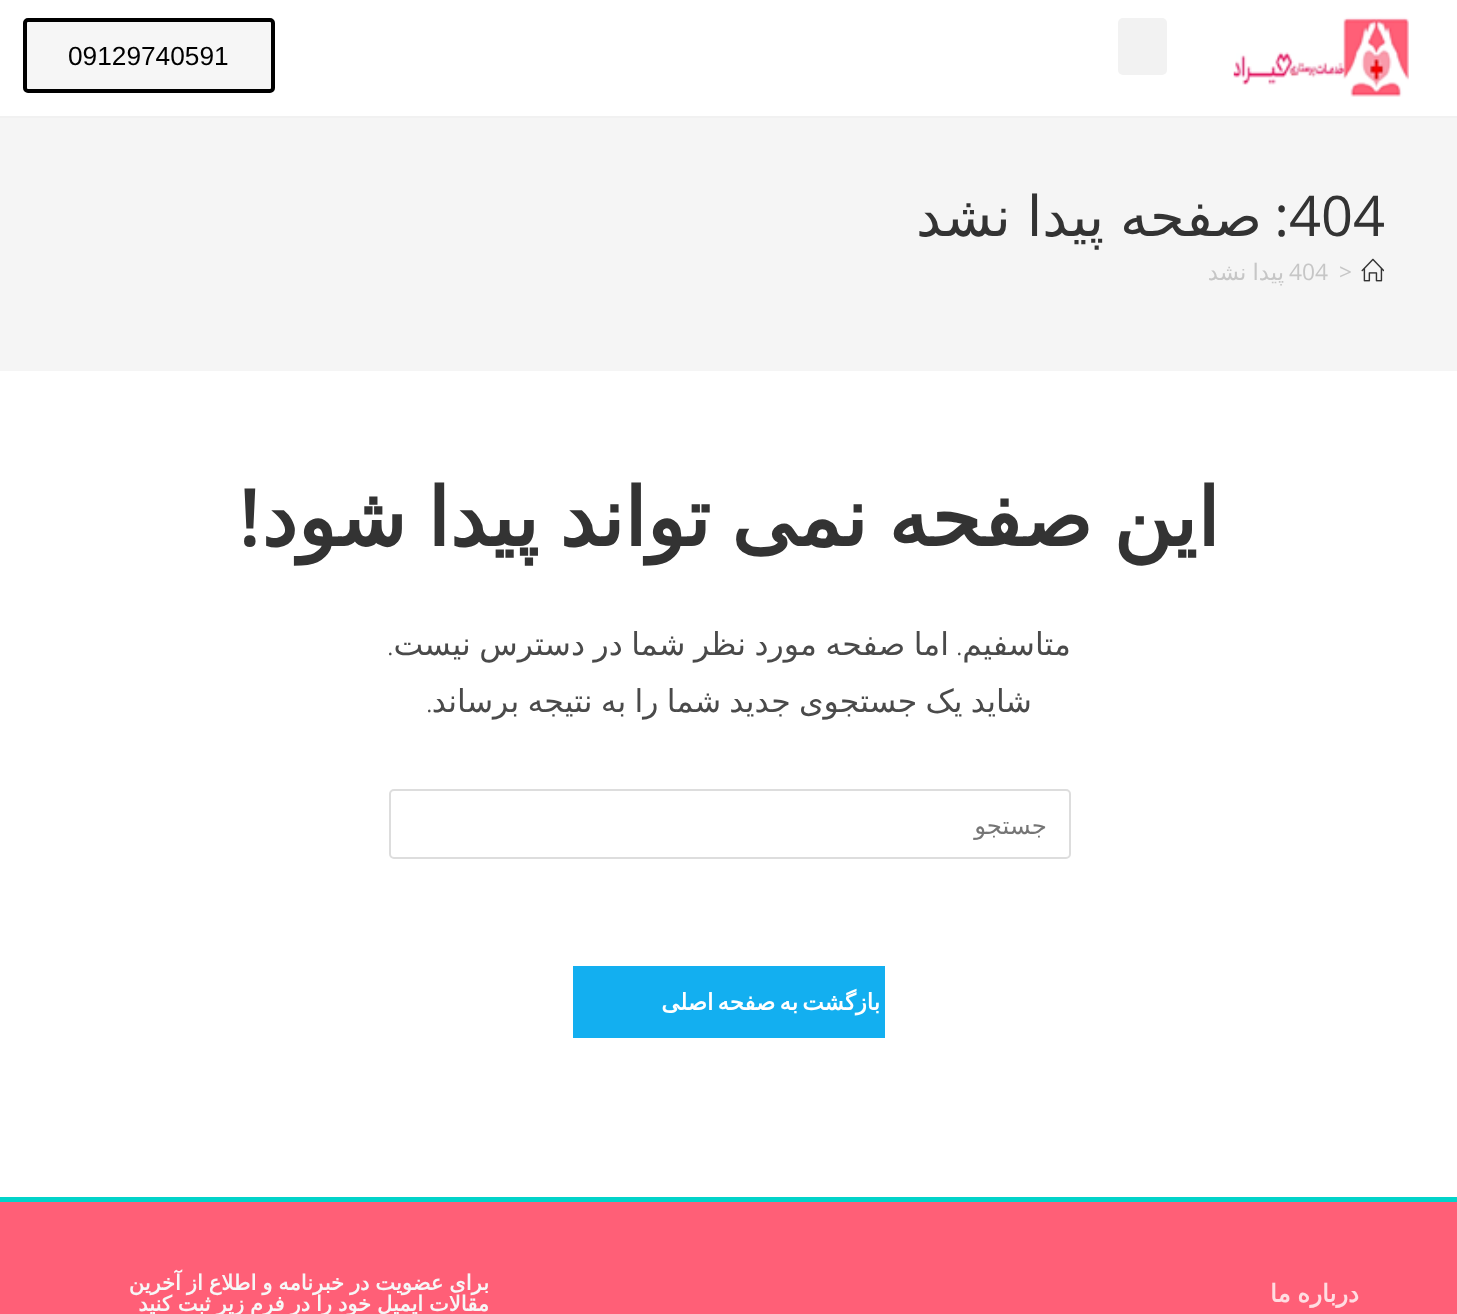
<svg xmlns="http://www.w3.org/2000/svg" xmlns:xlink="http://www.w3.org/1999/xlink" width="1457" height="1314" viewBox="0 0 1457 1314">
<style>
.cls-1{font:26.25px Liberation Sans;fill:#000000}
.cls-2{font:56px Open Sans;fill:#333333}
.cls-3{font:56px Open Sans;direction:rtl;fill:#333333}
.cls-4{font:56px DejaVu Sans;direction:rtl;fill:#333333}
.cls-5{font:22.75px Open Sans;fill:#c6c6c6}
.cls-6{font:22.75px DejaVu Sans;direction:rtl;fill:#c6c6c6}
.cls-7{font:bold 80.5px DejaVu Sans;direction:rtl;fill:#333333}
.cls-8{font:600 80.5px Open Sans;direction:rtl;fill:#333333}
.cls-9{font:31.5px DejaVu Sans;direction:rtl;fill:#4a4a4a}
.cls-10{font:300 31.5px Open Sans;direction:rtl;fill:#4a4a4a}
.cls-11{font:24.5px DejaVu Sans;direction:rtl;fill:#757575}
.cls-12{font:bold 22.75px DejaVu Sans;letter-spacing:2.25px;direction:rtl;fill:#ffffff}
.cls-13{font:bold 24.5px DejaVu Sans;direction:rtl;fill:#ffdde2}
.cls-14{font:bold 21px DejaVu Sans;direction:rtl;fill:#f7f7f7}
</style>
<rect width="100%" height="100%" fill="#ffffff"/>
<rect fill="#f1f1f1" x="0" y="116" width="1457" height="2"/>
<image xlink:href="image0.png" x="1233" y="17" width="176" height="80"/>
<rect fill="#f2f2f2" x="1118" y="18" width="49" height="57" rx="5"/>
<rect fill="#f6f6f6" stroke="#000000" stroke-width="4" x="25" y="20" width="248" height="71" rx="3"/>
<rect fill="#f5f5f5" x="0" y="118" width="1457" height="253"/>
<image xlink:href="image1.png" x="1361" y="258" width="23" height="24"/>
<rect fill="none" stroke="#dddddd" stroke-width="2" x="390" y="790" width="680" height="68" rx="4"/>
<rect fill="#13aff0" x="573" y="966" width="312" height="72"/>
<rect fill="#ff5f77" x="0" y="1202" width="1457" height="112"/>
<rect fill="#02d3c9" x="0" y="1197" width="1457" height="5"/>
<text class="cls-1" x="68" y="65">09129740591</text>
<text class="cls-2" x="1289" y="236">404</text>
<text class="cls-3" x="1289" y="236">:</text>
<text class="cls-4" x="1262" y="236" word-spacing="-2">صفحه پیدا نشد</text>
<text class="cls-5" x="1339" y="280">&gt;</text>
<text class="cls-5" x="1289" y="280">404</text>
<text class="cls-6" x="1284" y="280" word-spacing="-1">پیدا نشد</text>
<text class="cls-7" x="1219" y="546" word-spacing="-4.75">این صفحه نمی تواند پیدا شود</text>
<text class="cls-8" x="261" y="546">!</text>
<text class="cls-9" x="1071" y="655">متاسفیم</text>
<text class="cls-10" x="963" y="655">.</text>
<text class="cls-9" x="949" y="655" word-spacing="-1.5">اما صفحه مورد نظر شما در دسترس نیست</text>
<text class="cls-10" x="394" y="655">.</text>
<text class="cls-9" x="1032" y="712" word-spacing="-1.75">شاید یک جستجوی جدید شما را به نتیجه برساند</text>
<text class="cls-10" x="433" y="712">.</text>
<text class="cls-11" x="1047" y="834">جستجو</text>
<text class="cls-12" x="880" y="1010" word-spacing="-3">بازگشت به صفحه اصلی</text>
<text class="cls-13" x="1359" y="1302" word-spacing="-1">درباره ما</text>
<text class="cls-14"><tspan x="489" y="1290" word-spacing="-0.75">برای عضویت در خبرنامه و اطلاع از آخرین</tspan><tspan x="489" y="1311" word-spacing="-0.75">مقالات ایمیل خود را در فرم زیر ثبت کنید</tspan></text>
</svg>
